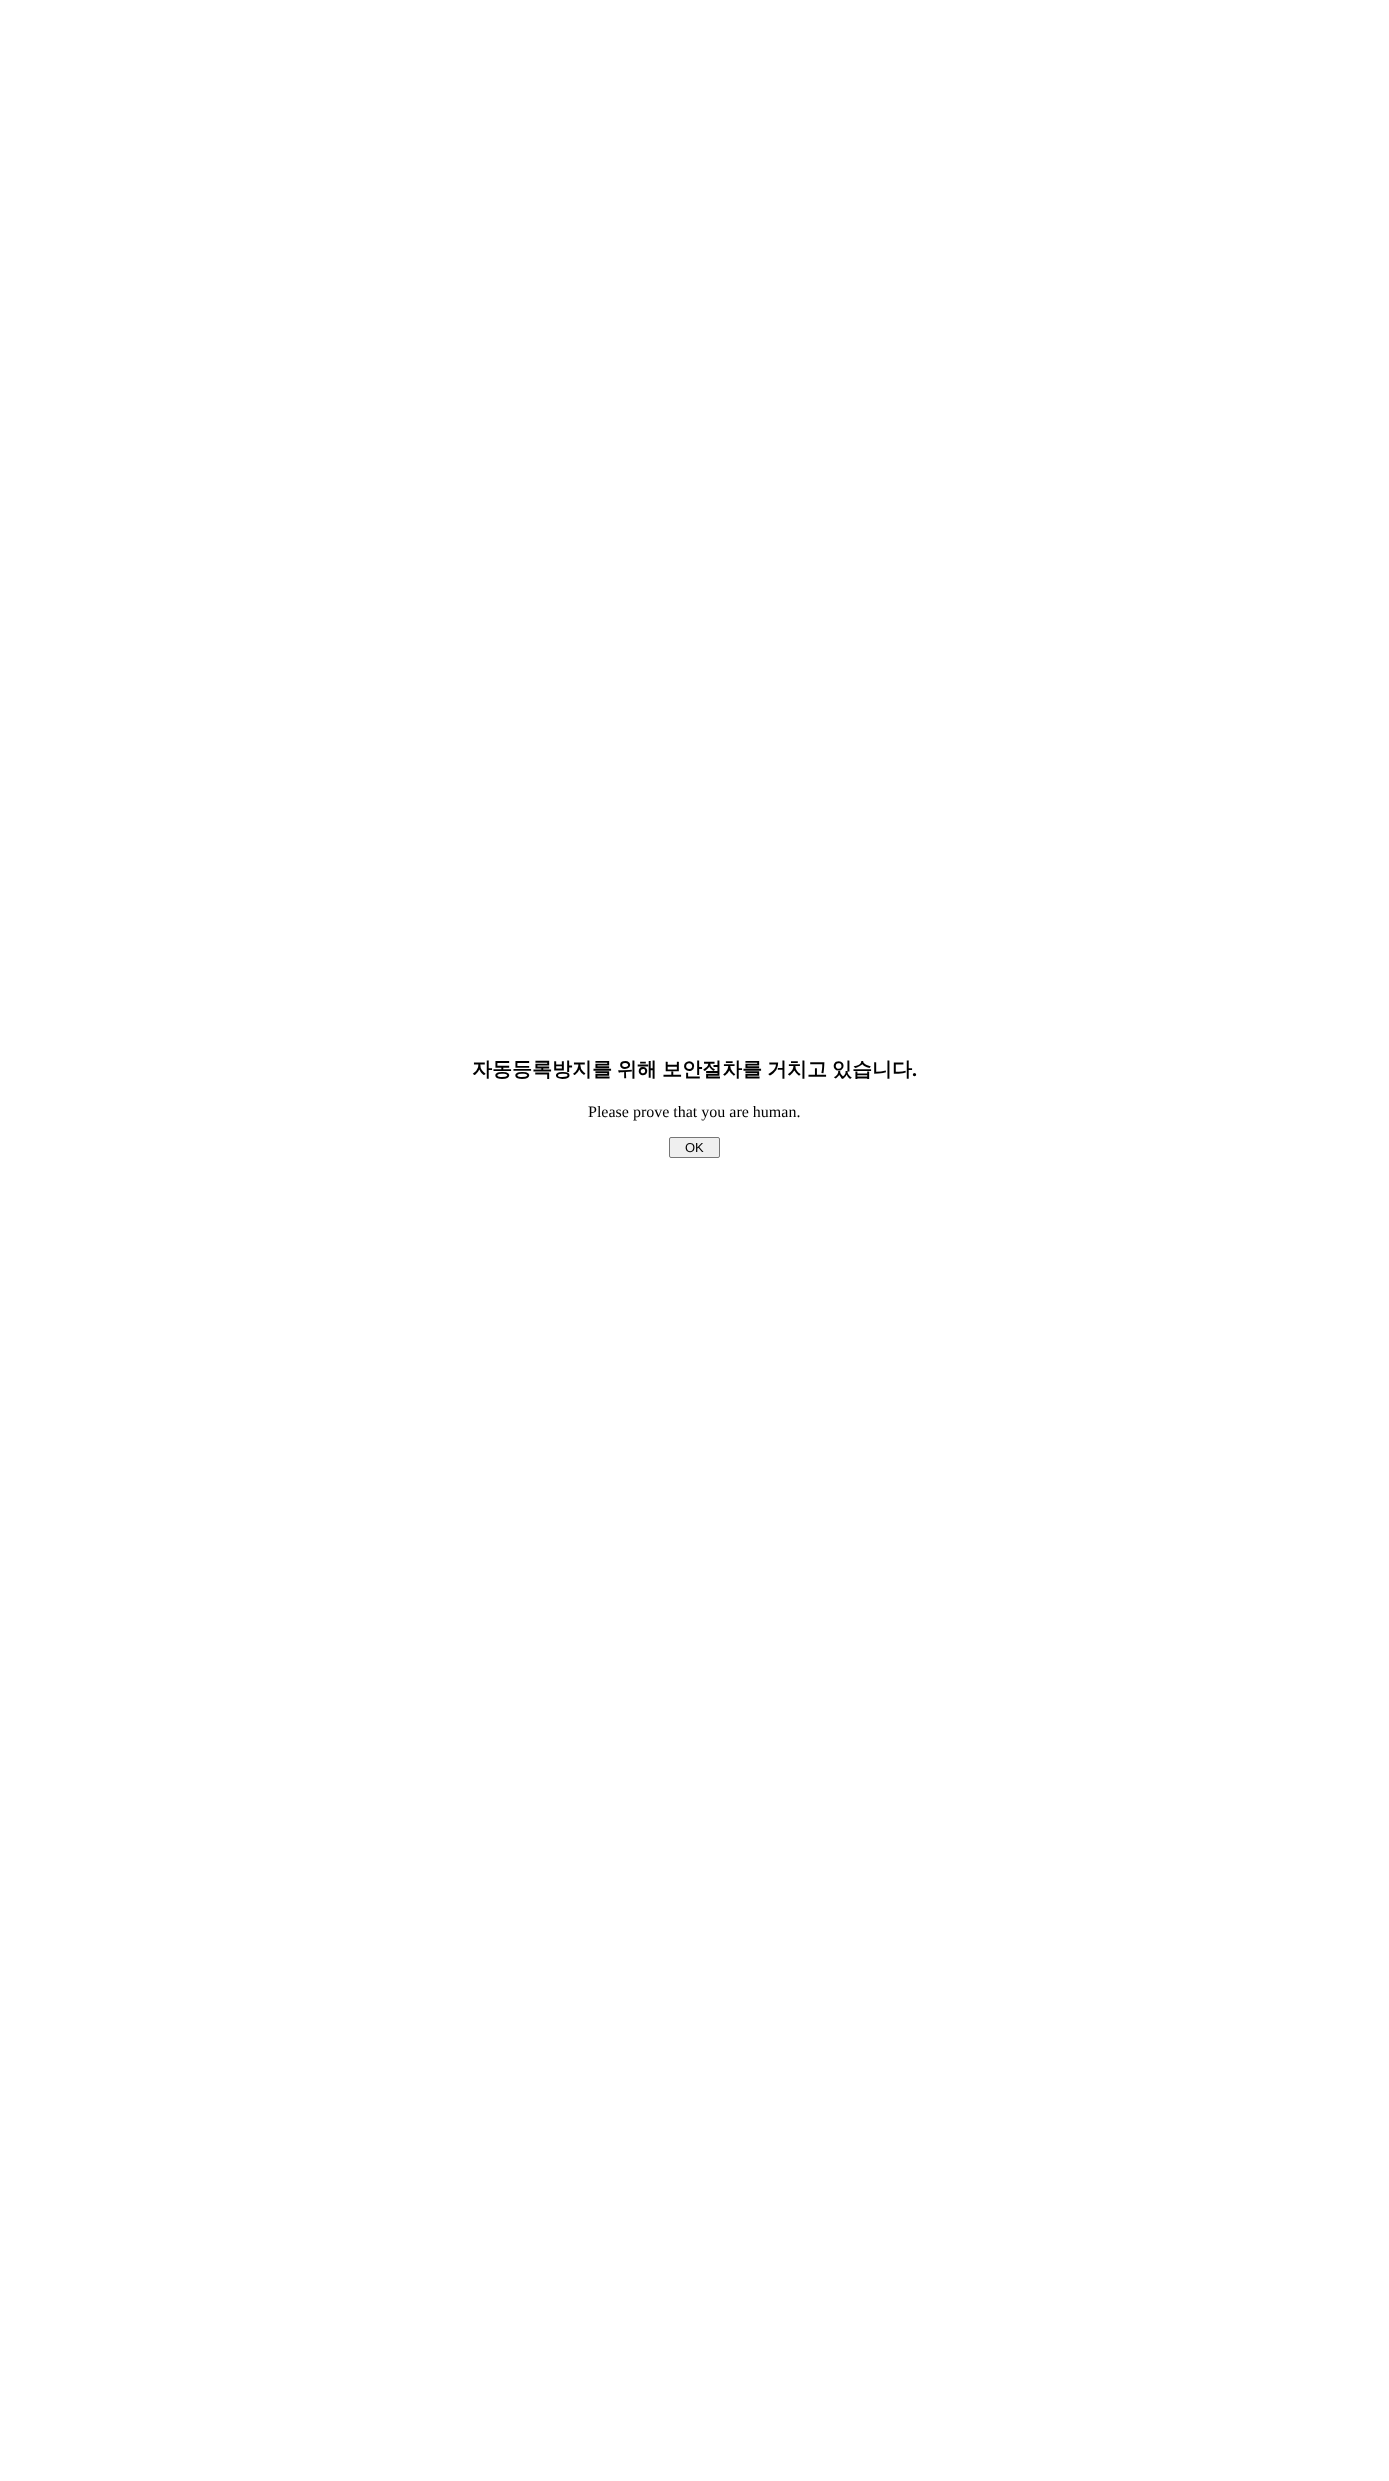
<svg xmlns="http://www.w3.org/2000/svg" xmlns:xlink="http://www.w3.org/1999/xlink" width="1389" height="2481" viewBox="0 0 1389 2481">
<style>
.cls-1{font:bold 20px WenQuanYi Zen Hei;fill:#000000}
.cls-2{font:bold 20px Liberation Serif;fill:#000000}
.cls-3{font:16px Liberation Serif;fill:#000000}
.cls-4{font:13px Liberation Sans;fill:#000000}
</style>
<rect width="100%" height="100%" fill="#ffffff"/>
<rect fill="#efefef" stroke="#767676" x="669.5" y="1137.5" width="50" height="20" rx="1.5"/>
<text class="cls-1" x="472" y="1076" word-spacing="-1">자동등록방지를 위해 보안절차를 거치고 있습니다</text>
<text class="cls-2" x="912" y="1076">.</text>
<text class="cls-3" x="588" y="1117">Please prove that you are human.</text>
<text class="cls-4" x="685" y="1152">OK</text>
</svg>
